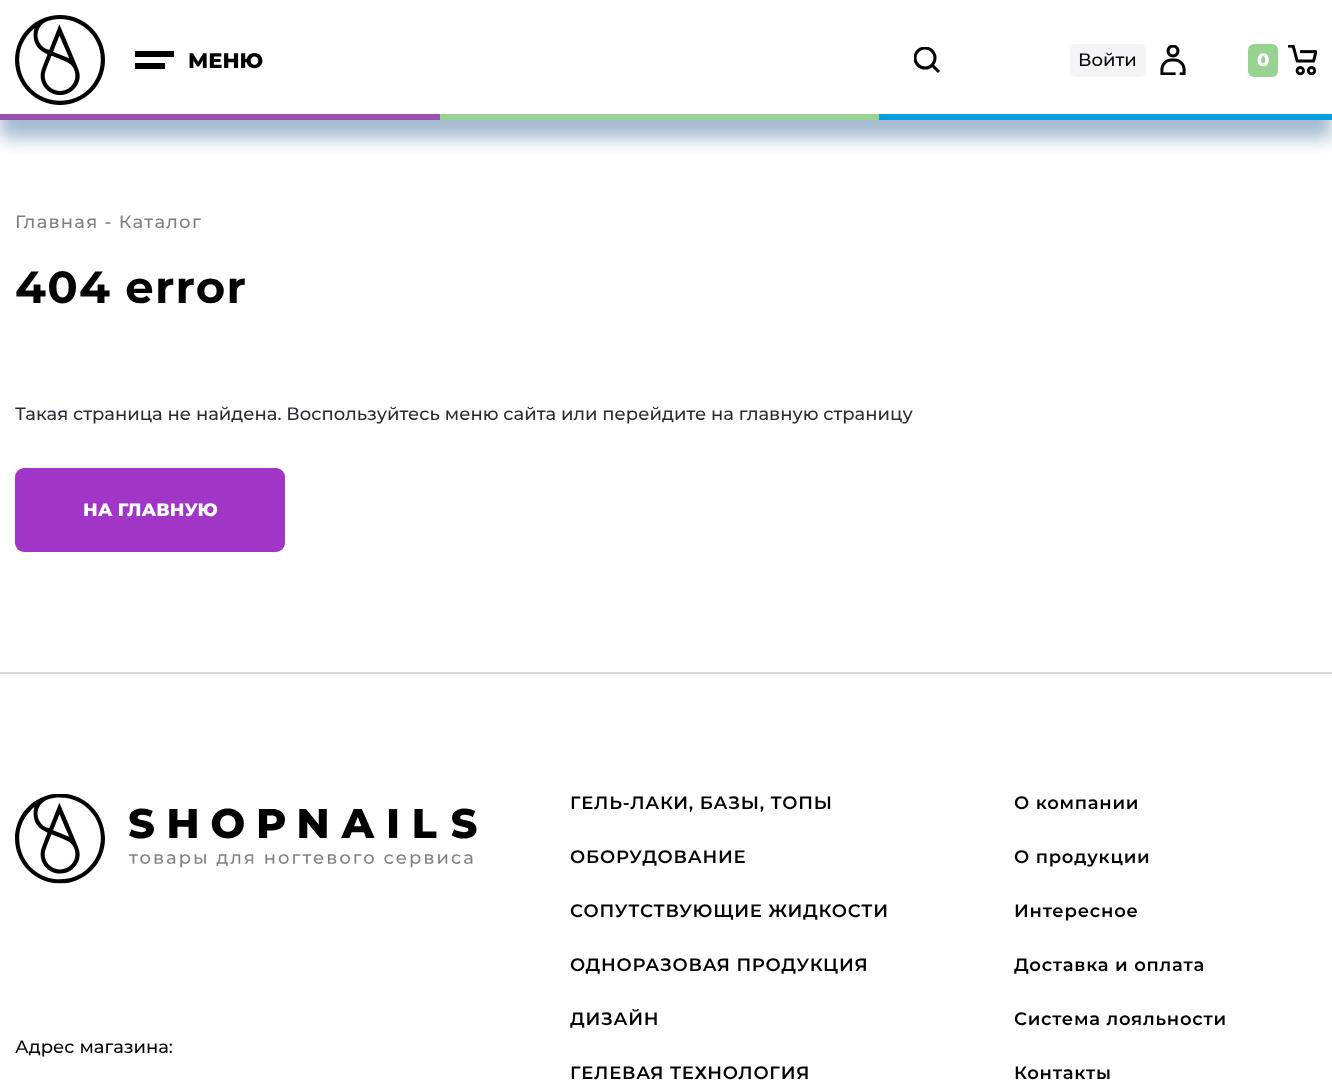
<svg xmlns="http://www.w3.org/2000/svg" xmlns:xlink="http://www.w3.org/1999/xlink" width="1332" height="1088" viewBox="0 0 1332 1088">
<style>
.cls-1{font:800 21px Montserrat;fill:#000000}
.cls-2{font:500 18px Montserrat;fill:#000000}
.cls-3{font:800 18px Montserrat;fill:#ffffff}
.cls-4{font:500 18px Montserrat;letter-spacing:1.25px;fill:#808080}
.cls-5{font:bold 45px Montserrat;letter-spacing:1.25px;fill:#000000}
.cls-6{font:500 18px Montserrat;fill:#282c31}
.cls-7{font:600 18px Montserrat;letter-spacing:0.75px;fill:#000000}
</style>
<defs>
<clipPath id="clip1"><rect x="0" y="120" width="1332" height="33"/></clipPath>
<clipPath id="clip2"><rect x="914" y="47" width="27" height="27"/></clipPath>
</defs>
<rect width="100%" height="100%" fill="#ffffff"/>
<g clip-path="url(#clip1)">
<rect fill="#195086" fill-opacity="0.4" filter="blur(9px)" x="0" y="18" width="1332" height="120"/>
</g>
<image xlink:href="image0.png" x="15" y="15" width="90" height="90"/>
<rect fill="#000000" x="135" y="51" width="39" height="6"/>
<rect fill="#000000" x="135" y="63" width="30" height="6"/>
<g clip-path="url(#clip2)">
<circle fill="none" stroke="#000000" stroke-width="3" cx="925" cy="58" r="10"/>
</g>
<path fill="none" stroke="#000000" stroke-width="3" stroke-linejoin="round" d="M932 65L939 72"/>
<rect fill="#f4f4f6" x="1070" y="44" width="76" height="33" rx="6"/>
<image xlink:href="image1.png" x="1160" y="45" width="26" height="30"/>
<rect fill="#98d291" x="1248" y="44" width="30" height="33" rx="6"/>
<image xlink:href="image2.png" x="1288" y="45" width="29" height="30"/>
<rect fill="#9952b0" x="0" y="114" width="440" height="6"/>
<rect fill="#97d291" x="440" y="114" width="439" height="6"/>
<rect fill="#009ede" x="879" y="114" width="453" height="6"/>
<rect fill="#a136c6" x="15" y="468" width="270" height="84" rx="9"/>
<rect fill="#d9d9d9" x="0" y="672" width="1332" height="2"/>
<image xlink:href="image3.png" x="15" y="794" width="462" height="90"/>
<text class="cls-1" x="188" y="68">МЕНЮ</text>
<text class="cls-2" x="1078" y="66">Войти</text>
<text class="cls-3" x="1257" y="66">0</text>
<text class="cls-4" x="15" y="228">Главная - Каталог</text>
<text class="cls-5" x="15" y="303">404 error</text>
<text class="cls-6" x="15" y="420">Такая страница не найдена. Воспользуйтесь меню сайта или перейдите на главную страницу</text>
<text class="cls-3" x="83" y="516">НА ГЛАВНУЮ</text>
<text class="cls-2" x="15" y="1053">Адрес магазина:</text>
<text class="cls-7" x="570" y="809">ГЕЛЬ-ЛАКИ, БАЗЫ, ТОПЫ</text>
<text class="cls-7" x="570" y="863">ОБОРУДОВАНИЕ</text>
<text class="cls-7" x="570" y="917">СОПУТСТВУЮЩИЕ ЖИДКОСТИ</text>
<text class="cls-7" x="570" y="971">ОДНОРАЗОВАЯ ПРОДУКЦИЯ</text>
<text class="cls-7" x="570" y="1025">ДИЗАЙН</text>
<text class="cls-7" x="570" y="1079">ГЕЛЕВАЯ ТЕХНОЛОГИЯ</text>
<text class="cls-7" x="1014" y="809">О компании</text>
<text class="cls-7" x="1014" y="863">О продукции</text>
<text class="cls-7" x="1014" y="917">Интересное</text>
<text class="cls-7" x="1014" y="971">Доставка и оплата</text>
<text class="cls-7" x="1014" y="1025">Система лояльности</text>
<text class="cls-7" x="1014" y="1079">Контакты</text>
</svg>
